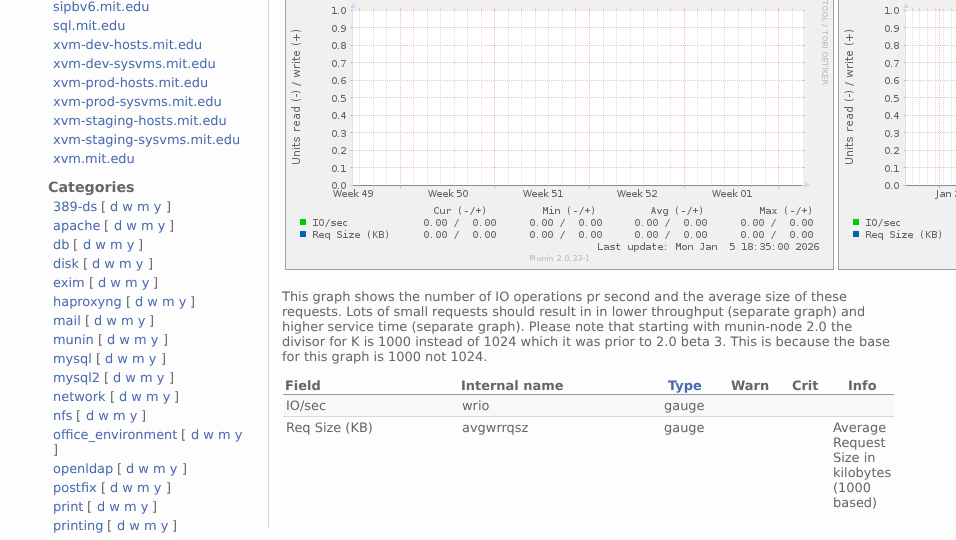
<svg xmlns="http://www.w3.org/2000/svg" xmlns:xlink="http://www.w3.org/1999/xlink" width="956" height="540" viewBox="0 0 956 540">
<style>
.cls-1{font:12.95px DejaVu Sans;fill:#486aaf}
.cls-2{font:bold 14.25px DejaVu Sans;fill:#666666}
.cls-3{font:12.95px DejaVu Sans;fill:#666666}
.cls-4{font:bold 12.95px DejaVu Sans;fill:#666666}
.cls-5{font:bold 12.95px DejaVu Sans;fill:#486aaf}
</style>
<rect width="100%" height="100%" fill="#fdfdfd"/>
<rect fill="#cfd6f8" x="268" y="0" width="1" height="528"/>
<rect fill="none" stroke="#a0a0a0" x="285.5" y="-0.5" width="548" height="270"/>
<image xlink:href="image0.png" x="286" y="0" width="547" height="269"/>
<rect fill="none" stroke="#a0a0a0" x="838.5" y="-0.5" width="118" height="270"/>
<image xlink:href="image1.png" x="839" y="0" width="117" height="269"/>
<rect fill="#999999" x="283" y="394" width="611" height="1"/>
<rect fill="#f8f8f8" x="284" y="395" width="609" height="21"/>
<rect fill="#d8d8d8" x="283" y="416" width="611" height="1"/>
<text class="cls-1"><tspan x="53" y="11">sipbv6.mit.edu</tspan><tspan x="53" y="30">sql.mit.edu</tspan><tspan x="53" y="49">xvm-dev-hosts.mit.edu</tspan><tspan x="53" y="68">xvm-dev-sysvms.mit.edu</tspan><tspan x="53" y="87">xvm-prod-hosts.mit.edu</tspan><tspan x="53" y="106">xvm-prod-sysvms.mit.edu</tspan><tspan x="53" y="125">xvm-staging-hosts.mit.edu</tspan><tspan x="53" y="144">xvm-staging-sysvms.mit.edu</tspan><tspan x="53" y="163">xvm.mit.edu</tspan></text>
<text class="cls-2" x="48" y="192">Categories</text>
<text class="cls-1" x="53" y="211">389-ds</text>
<text class="cls-3" x="101" y="211">[</text>
<text class="cls-1" x="110" y="211">d w m y</text>
<text class="cls-3" x="166" y="211">]</text>
<text class="cls-1" x="53" y="230">apache</text>
<text class="cls-3" x="104" y="230">[</text>
<text class="cls-1" x="114" y="230">d w m y</text>
<text class="cls-3" x="169" y="230">]</text>
<text class="cls-1" x="53" y="249">db</text>
<text class="cls-3" x="73" y="249">[</text>
<text class="cls-1" x="83" y="249">d w m y</text>
<text class="cls-3" x="138" y="249">]</text>
<text class="cls-1" x="53" y="268">disk</text>
<text class="cls-3" x="83" y="268">[</text>
<text class="cls-1" x="92" y="268">d w m y</text>
<text class="cls-3" x="148" y="268">]</text>
<text class="cls-1" x="53" y="287">exim</text>
<text class="cls-3" x="89" y="287">[</text>
<text class="cls-1" x="98" y="287">d w m y</text>
<text class="cls-3" x="153" y="287">]</text>
<text class="cls-1" x="53" y="306">haproxyng</text>
<text class="cls-3" x="126" y="306">[</text>
<text class="cls-1" x="135" y="306">d w m y</text>
<text class="cls-3" x="190" y="306">]</text>
<text class="cls-1" x="53" y="325">mail</text>
<text class="cls-3" x="85" y="325">[</text>
<text class="cls-1" x="94" y="325">d w m y</text>
<text class="cls-3" x="149" y="325">]</text>
<text class="cls-1" x="53" y="344">munin</text>
<text class="cls-3" x="98" y="344">[</text>
<text class="cls-1" x="107" y="344">d w m y</text>
<text class="cls-3" x="163" y="344">]</text>
<text class="cls-1" x="53" y="363">mysql</text>
<text class="cls-3" x="96" y="363">[</text>
<text class="cls-1" x="105" y="363">d w m y</text>
<text class="cls-3" x="161" y="363">]</text>
<text class="cls-1" x="53" y="382">mysql2</text>
<text class="cls-3" x="104" y="382">[</text>
<text class="cls-1" x="113" y="382">d w m y</text>
<text class="cls-3" x="169" y="382">]</text>
<text class="cls-1" x="53" y="401">network</text>
<text class="cls-3" x="110" y="401">[</text>
<text class="cls-1" x="119" y="401">d w m y</text>
<text class="cls-3" x="174" y="401">]</text>
<text class="cls-1" x="53" y="420">nfs</text>
<text class="cls-3" x="76" y="420">[</text>
<text class="cls-1" x="86" y="420">d w m y</text>
<text class="cls-3" x="141" y="420">]</text>
<text class="cls-1" x="53" y="439">office_environment</text>
<text class="cls-3" x="181" y="439">[</text>
<text class="cls-1" x="191" y="439">d w m y</text>
<text class="cls-3" x="53" y="454">]</text>
<text class="cls-1" x="53" y="473">openldap</text>
<text class="cls-3" x="117" y="473">[</text>
<text class="cls-1" x="126" y="473">d w m y</text>
<text class="cls-3" x="182" y="473">]</text>
<text class="cls-1" x="53" y="492">postfix</text>
<text class="cls-3" x="101" y="492">[</text>
<text class="cls-1" x="110" y="492">d w m y</text>
<text class="cls-3" x="166" y="492">]</text>
<text class="cls-1" x="53" y="511">print</text>
<text class="cls-3" x="87" y="511">[</text>
<text class="cls-1" x="97" y="511">d w m y</text>
<text class="cls-3" x="152" y="511">]</text>
<text class="cls-1" x="53" y="530">printing</text>
<text class="cls-3" x="107" y="530">[</text>
<text class="cls-1" x="117" y="530">d w m y</text>
<text class="cls-3" x="172" y="530">]</text>
<text class="cls-3"><tspan x="282" y="301">This graph shows the number of IO operations pr second and the average size of these</tspan><tspan x="282" y="316">requests. Lots of small requests should result in in lower throughput (separate graph) and</tspan><tspan x="282" y="331">higher service time (separate graph). Please note that starting with munin-node 2.0 the</tspan><tspan x="282" y="346">divisor for K is 1000 instead of 1024 which it was prior to 2.0 beta 3. This is because the base</tspan><tspan x="282" y="361">for this graph is 1000 not 1024.</tspan></text>
<text class="cls-4" x="285" y="390">Field</text>
<text class="cls-4" x="461" y="390">Internal name</text>
<text class="cls-5" x="668" y="390">Type</text>
<text class="cls-4" x="731" y="390">Warn</text>
<text class="cls-4" x="792" y="390">Crit</text>
<text class="cls-4" x="848" y="390">Info</text>
<text class="cls-3" x="286" y="410">IO/sec</text>
<text class="cls-3" x="462" y="410">wrio</text>
<text class="cls-3" x="664" y="410">gauge</text>
<text class="cls-3" x="286" y="432">Req Size (KB)</text>
<text class="cls-3" x="462" y="432">avgwrrqsz</text>
<text class="cls-3" x="664" y="432">gauge</text>
<text class="cls-3"><tspan x="833" y="432">Average</tspan><tspan x="833" y="447">Request</tspan><tspan x="833" y="462">Size in</tspan><tspan x="833" y="477">kilobytes</tspan><tspan x="833" y="492">(1000</tspan><tspan x="833" y="507">based)</tspan></text>
</svg>
